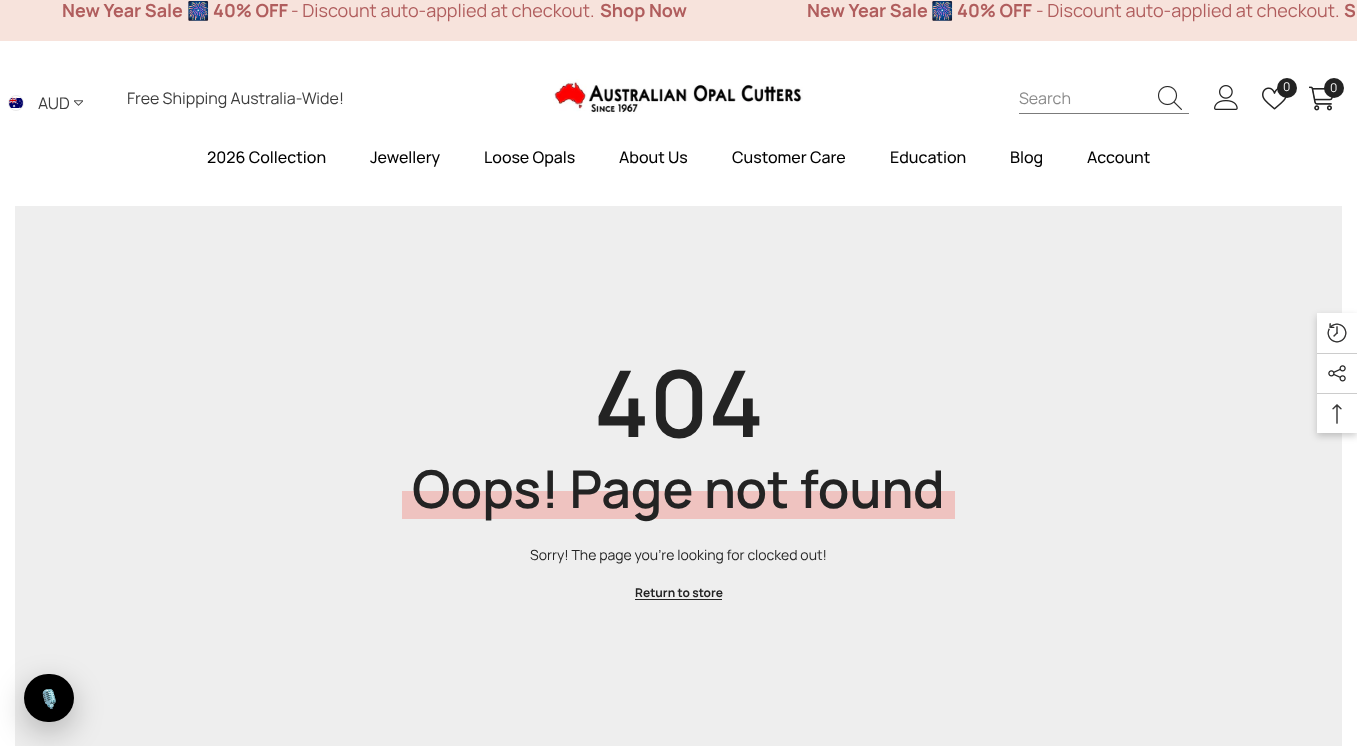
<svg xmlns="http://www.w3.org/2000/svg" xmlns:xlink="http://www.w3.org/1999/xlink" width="1357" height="746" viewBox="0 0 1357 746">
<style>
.cls-1{font:bold 18px Manrope;fill:#b05d5d}
.cls-2{font:bold 18px Noto Color Emoji;fill:#b05d5d}
.cls-3{font:18px Manrope;fill:#b05d5d}
.cls-4{font:16px Manrope;fill:#3c3c3c}
.cls-5{font:12px Manrope;fill:#ffffff}
.cls-6{font:16px Manrope;fill:#8a8a8a}
.cls-7{font:500 16px Manrope;fill:#000000}
.cls-8{font:600 92px Manrope;fill:#232323}
.cls-9{font:600 52px Manrope;fill:#232323}
.cls-10{font:14px Manrope;fill:#232323}
.cls-11{font:bold 12px Manrope;fill:#232323}
.cls-12{font:18px Noto Color Emoji;fill:#ffffff}
</style>
<defs>
<clipPath id="clip1"><rect x="2" y="0" width="1353" height="40"/></clipPath>
</defs>
<rect width="100%" height="100%" fill="#ffffff"/>
<rect fill="#f7e3dc" x="0" y="0" width="1357" height="41"/>
<circle fill="none" stroke="#e9e9e9" cx="16" cy="103" r="7.5"/>
<image xlink:href="image0.png" x="9" y="97" width="14" height="11"/>
<image xlink:href="image1.png" x="74" y="100" width="9" height="6"/>
<image xlink:href="image2.png" x="553" y="79" width="250" height="35"/>
<image xlink:href="image3.png" x="1214" y="85" width="24" height="25"/>
<image xlink:href="image4.png" x="1262" y="87" width="25" height="23"/>
<circle fill="#232323" cx="1287" cy="88" r="10"/>
<image xlink:href="image5.png" x="1309" y="86" width="24" height="25"/>
<circle fill="#232323" cx="1334" cy="88" r="10"/>
<rect fill="#7b7b7b" x="1019" y="113" width="170" height="1"/>
<image xlink:href="image6.png" x="1158" y="86" width="24" height="24"/>
<rect fill="#eeeeee" x="15" y="206" width="1327" height="540"/>
<rect fill="#efc3c0" x="402" y="491" width="553" height="28"/>
<rect fill="#232323" x="635" y="599" width="87" height="1"/>
<rect fill="#000000" fill-opacity="0.2" filter="blur(3.5px)" x="1317" y="316" width="40" height="120"/>
<rect fill="#ffffff" x="1317" y="313" width="40" height="120"/>
<image xlink:href="image7.png" x="1327" y="323" width="20" height="20"/>
<rect fill="#cccccc" x="1317" y="353" width="40" height="1"/>
<image xlink:href="image8.png" x="1328" y="365" width="18" height="17"/>
<rect fill="#cccccc" x="1317" y="393" width="40" height="1"/>
<image xlink:href="image9.png" x="1332" y="404" width="10" height="20"/>
<rect fill="#000000" fill-opacity="0.25" filter="blur(15px)" x="24" y="684" width="50" height="48" rx="24"/>
<rect fill="#000000" x="24" y="674" width="50" height="48" rx="24"/>
<text class="cls-1" x="62" y="17">New Year Sale</text>
<text class="cls-2" x="187" y="17">🎆</text>
<text class="cls-1" x="213" y="17">40% OFF</text>
<text class="cls-3" x="291" y="17">- Discount auto-applied at checkout.</text>
<text class="cls-1" x="600" y="17">Shop Now</text>
<text class="cls-1" x="807" y="17">New Year Sale</text>
<text class="cls-2" x="931" y="17">🎆</text>
<text class="cls-1" x="957" y="17">40% OFF</text>
<text class="cls-3" x="1036" y="17">- Discount auto-applied at checkout.</text>
<g clip-path="url(#clip1)">
<text class="cls-1" x="1344" y="17">S</text>
</g>
<text class="cls-4" x="38" y="109">AUD</text>
<text class="cls-4" x="127" y="104">Free Shipping Australia-Wide!</text>
<text class="cls-5" x="1283" y="91">0</text>
<text class="cls-5" x="1330" y="92">0</text>
<text class="cls-6" x="1019" y="104">Search</text>
<text class="cls-7" x="207" y="163">2026 Collection</text>
<text class="cls-7" x="370" y="163">Jewellery</text>
<text class="cls-7" x="484" y="163">Loose Opals</text>
<text class="cls-7" x="619" y="163">About Us</text>
<text class="cls-7" x="732" y="163">Customer Care</text>
<text class="cls-7" x="890" y="163">Education</text>
<text class="cls-7" x="1010" y="163">Blog</text>
<text class="cls-7" x="1087" y="163">Account</text>
<text class="cls-8" x="594" y="437">404</text>
<text class="cls-9" x="412" y="508">Oops! Page not found</text>
<text class="cls-10" x="530" y="560">Sorry! The page you're looking for clocked out!</text>
<text class="cls-11" x="635" y="597">Return to store</text>
<text class="cls-12" x="38" y="705">🎙️</text>
</svg>
